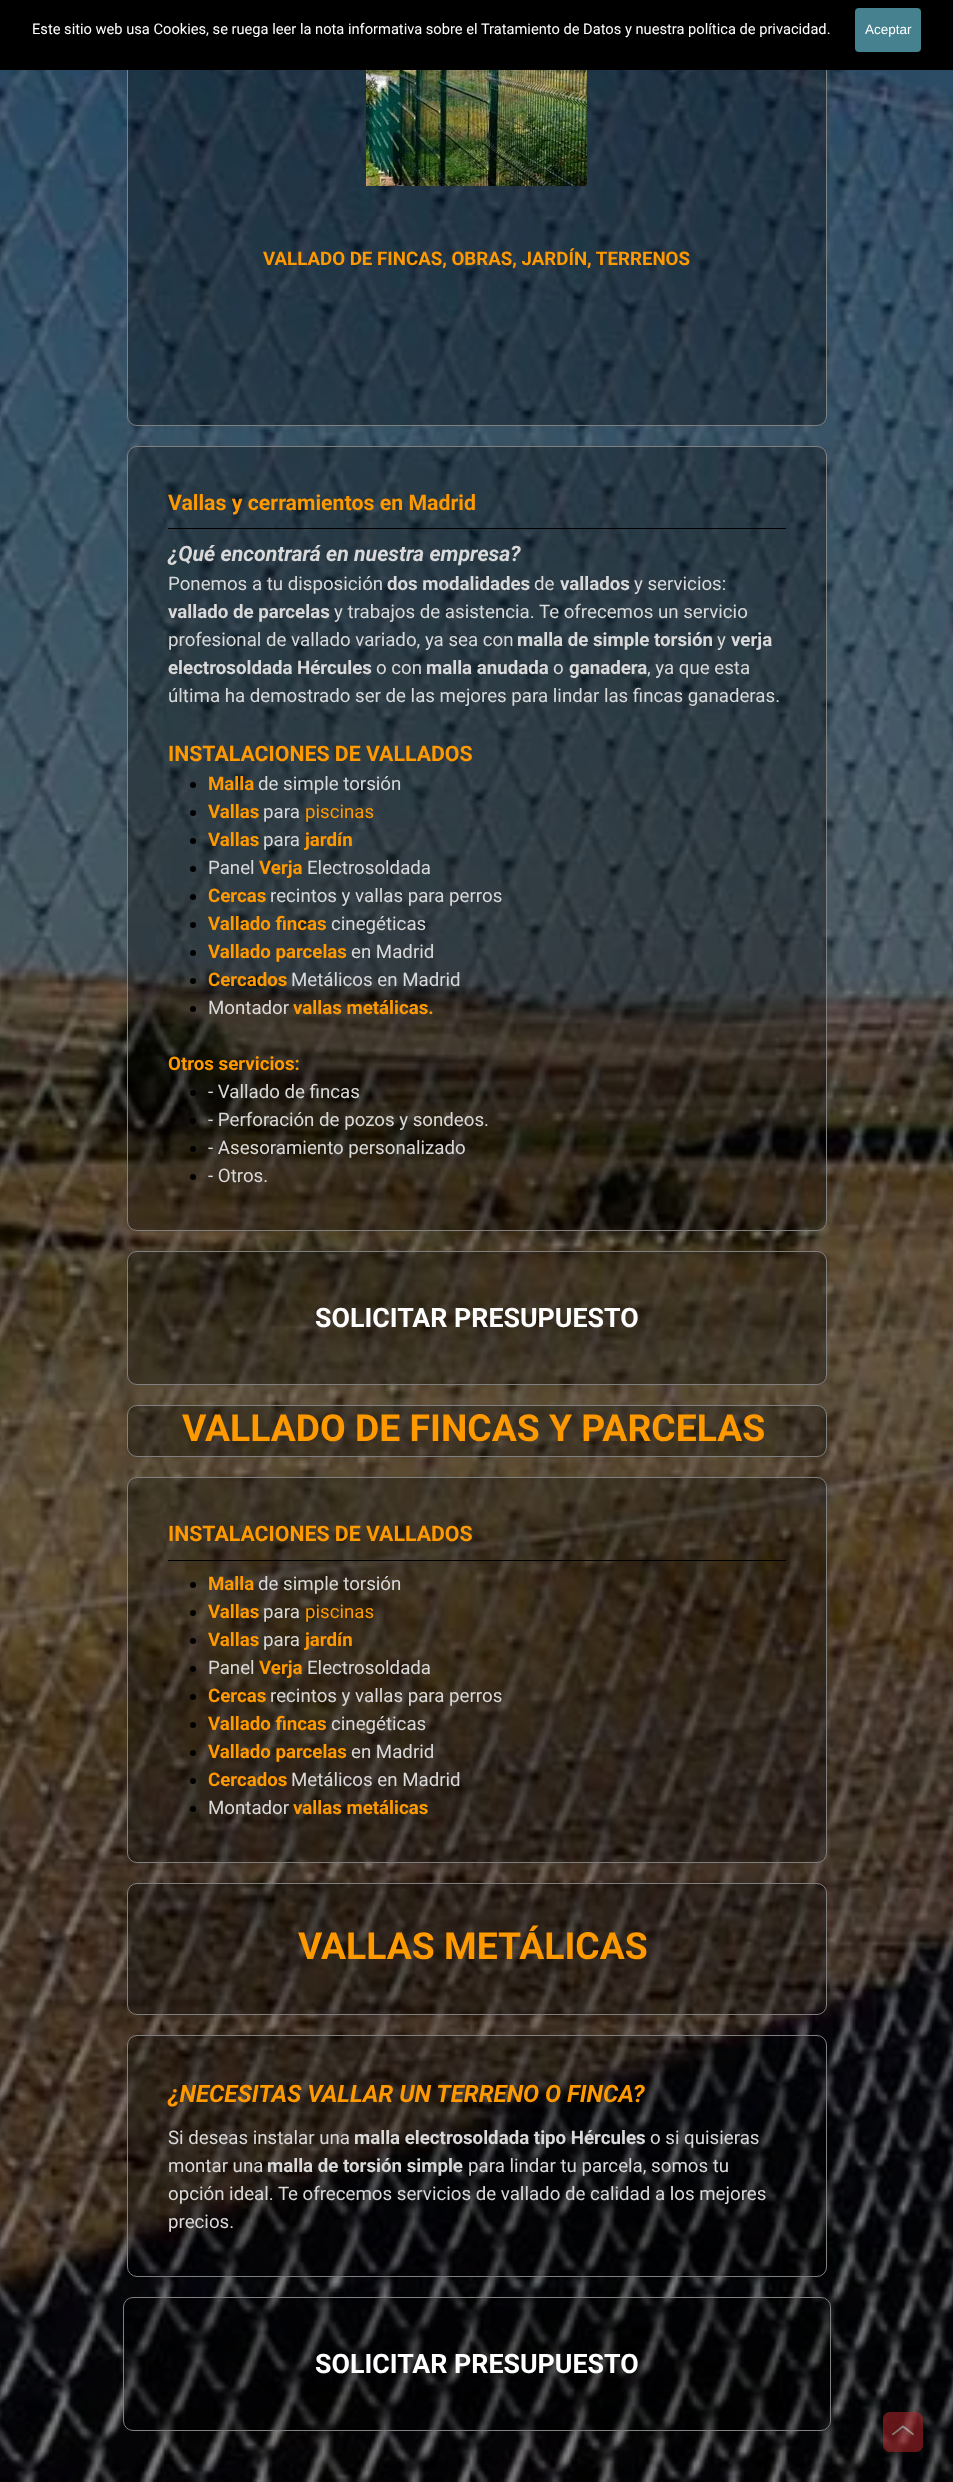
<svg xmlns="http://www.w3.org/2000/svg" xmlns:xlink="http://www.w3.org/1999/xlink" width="953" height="2482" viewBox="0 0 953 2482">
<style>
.cls-1{font:14.67px Roboto;fill:#ffffff}
.cls-2{font:13.5px Liberation Sans;fill:#ffffff}
.cls-3{font:bold 18.7px Roboto;fill:#ff9900}
.cls-4{font:bold 21.3px Roboto;fill:#ff9900}
.cls-5{font:italic bold 21.3px Roboto;fill:#d9d9d9}
.cls-6{font:18.7px Roboto;fill:#d9d9d9}
.cls-7{font:bold 18.7px Roboto;fill:#d9d9d9}
.cls-8{font:18.7px Roboto;fill:#ff9900}
.cls-9{font:bold 26.75px Roboto;fill:#ffffff}
.cls-10{font:bold 37.3px Roboto;fill:#ff9900}
.cls-11{font:italic bold 24px Roboto;fill:#ff9900}
</style>
<rect width="100%" height="100%" fill="#ffffff"/>
<image xlink:href="image0.png" x="0" y="70" width="953" height="2412"/>
<rect fill="#000000" fill-opacity="0.3" stroke="#808080" x="127.5" y="-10.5" width="699" height="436" rx="9.5"/>
<rect fill="#000000" x="0" y="0" width="953" height="70"/>
<rect fill="#45818e" x="855" y="8" width="66" height="44" rx="4"/>
<image xlink:href="image1.png" x="366" y="70" width="221" height="116"/>
<rect fill="#000000" fill-opacity="0.3" stroke="#808080" x="127.5" y="446.5" width="699" height="784" rx="9.5"/>
<rect fill="#000000" x="168" y="528" width="618" height="1"/>
<circle fill="#000000" cx="193" cy="785" r="3"/>
<circle fill="#000000" cx="193" cy="813" r="3"/>
<circle fill="#000000" cx="193" cy="841" r="3"/>
<circle fill="#000000" cx="193" cy="869" r="3"/>
<circle fill="#000000" cx="193" cy="897" r="3"/>
<circle fill="#000000" cx="193" cy="925" r="3"/>
<circle fill="#000000" cx="193" cy="953" r="3"/>
<circle fill="#000000" cx="193" cy="981" r="3"/>
<circle fill="#000000" cx="193" cy="1009" r="3"/>
<circle fill="#000000" cx="193" cy="1093" r="3"/>
<circle fill="#000000" cx="193" cy="1121" r="3"/>
<circle fill="#000000" cx="193" cy="1149" r="3"/>
<circle fill="#000000" cx="193" cy="1177" r="3"/>
<rect fill="#000000" fill-opacity="0.3" stroke="#808080" x="127.5" y="1251.5" width="699" height="133" rx="9.5"/>
<rect fill="#000000" fill-opacity="0.3" stroke="#808080" x="127.5" y="1405.5" width="699" height="51" rx="9.5"/>
<rect fill="#000000" fill-opacity="0.3" stroke="#808080" x="127.5" y="1477.5" width="699" height="385" rx="9.5"/>
<rect fill="#000000" x="168" y="1560" width="618" height="1"/>
<circle fill="#000000" cx="193" cy="1585" r="3"/>
<circle fill="#000000" cx="193" cy="1613" r="3"/>
<circle fill="#000000" cx="193" cy="1641" r="3"/>
<circle fill="#000000" cx="193" cy="1669" r="3"/>
<circle fill="#000000" cx="193" cy="1697" r="3"/>
<circle fill="#000000" cx="193" cy="1725" r="3"/>
<circle fill="#000000" cx="193" cy="1753" r="3"/>
<circle fill="#000000" cx="193" cy="1781" r="3"/>
<circle fill="#000000" cx="193" cy="1809" r="3"/>
<rect fill="#000000" fill-opacity="0.3" stroke="#808080" x="127.5" y="1883.5" width="699" height="131" rx="9.5"/>
<rect fill="#000000" fill-opacity="0.3" stroke="#808080" x="127.5" y="2035.5" width="699" height="241" rx="9.5"/>
<rect fill="#000000" fill-opacity="0.3" stroke="#808080" x="123.5" y="2297.5" width="707" height="133" rx="9.5"/>
<image xlink:href="image2.png" x="883" y="2412" width="40" height="40"/>
<text class="cls-1" x="32" y="34">Este sitio web usa Cookies, se ruega leer la nota informativa sobre el Tratamiento de Datos y nuestra política de privacidad.</text>
<text class="cls-2" x="865" y="34">Aceptar</text>
<text class="cls-3" x="263" y="265">VALLADO DE FINCAS, OBRAS, JARDÍN, TERRENOS</text>
<text class="cls-4" x="168" y="510">Vallas y cerramientos en Madrid</text>
<text class="cls-5" x="168" y="561">¿Qué encontrará en nuestra empresa?</text>
<text class="cls-6" x="168" y="590">Ponemos a tu disposición</text>
<text class="cls-7" x="387" y="590">dos modalidades</text>
<text class="cls-6" x="534" y="590">de</text>
<text class="cls-7" x="560" y="590">vallados</text>
<text class="cls-6" x="634" y="590">y servicios:</text>
<text class="cls-7" x="168" y="618">vallado de parcelas</text>
<text class="cls-6" x="334" y="618">y trabajos de asistencia. Te ofrecemos un servicio</text>
<text class="cls-6" x="168" y="646">profesional de vallado variado, ya sea con</text>
<text class="cls-7" x="517" y="646">malla de simple torsión</text>
<text class="cls-6" x="717" y="646">y</text>
<text class="cls-7" x="731" y="646">verja</text>
<text class="cls-7" x="168" y="674">electrosoldada Hércules</text>
<text class="cls-6" x="376" y="674">o con</text>
<text class="cls-7" x="426" y="674">malla anudada</text>
<text class="cls-6" x="553" y="674">o</text>
<text class="cls-7" x="569" y="674">ganadera</text>
<text class="cls-6" x="647" y="674">, ya que esta</text>
<text class="cls-6" x="168" y="702">última ha demostrado ser de las mejores para lindar las fincas ganaderas.</text>
<text class="cls-4" x="168" y="761">INSTALACIONES DE VALLADOS</text>
<text class="cls-3" x="208" y="790">Malla</text>
<text class="cls-6" x="258" y="790">de simple torsión</text>
<text class="cls-3" x="208" y="818">Vallas</text>
<text class="cls-6" x="263" y="818">para</text>
<text class="cls-8" x="305" y="818">piscinas</text>
<text class="cls-3" x="208" y="846">Vallas</text>
<text class="cls-6" x="263" y="846">para</text>
<text class="cls-3" x="305" y="846">jardín</text>
<text class="cls-6" x="208" y="874">Panel</text>
<text class="cls-3" x="259" y="874">Verja</text>
<text class="cls-6" x="307" y="874">Electrosoldada</text>
<text class="cls-3" x="208" y="902">Cercas</text>
<text class="cls-6" x="270" y="902">recintos y vallas para perros</text>
<text class="cls-3" x="208" y="930">Vallado fincas</text>
<text class="cls-6" x="331" y="930">cinegéticas</text>
<text class="cls-3" x="208" y="958">Vallado parcelas</text>
<text class="cls-6" x="351" y="958">en Madrid</text>
<text class="cls-3" x="208" y="986">Cercados</text>
<text class="cls-6" x="291" y="986">Metálicos en Madrid</text>
<text class="cls-6" x="208" y="1014">Montador</text>
<text class="cls-3" x="293" y="1014">vallas metálicas.</text>
<text class="cls-3" x="168" y="1070">Otros servicios:</text>
<text class="cls-6"><tspan x="208" y="1098">- Vallado de fincas</tspan><tspan x="208" y="1126">- Perforación de pozos y sondeos.</tspan><tspan x="208" y="1154">- Asesoramiento personalizado</tspan><tspan x="208" y="1182">- Otros.</tspan></text>
<text class="cls-9" x="315" y="1327">SOLICITAR PRESUPUESTO</text>
<text class="cls-10" x="182" y="1441">VALLADO DE FINCAS Y PARCELAS</text>
<text class="cls-4" x="168" y="1541">INSTALACIONES DE VALLADOS</text>
<text class="cls-3" x="208" y="1590">Malla</text>
<text class="cls-6" x="258" y="1590">de simple torsión</text>
<text class="cls-3" x="208" y="1618">Vallas</text>
<text class="cls-6" x="263" y="1618">para</text>
<text class="cls-8" x="305" y="1618">piscinas</text>
<text class="cls-3" x="208" y="1646">Vallas</text>
<text class="cls-6" x="263" y="1646">para</text>
<text class="cls-3" x="305" y="1646">jardín</text>
<text class="cls-6" x="208" y="1674">Panel</text>
<text class="cls-3" x="259" y="1674">Verja</text>
<text class="cls-6" x="307" y="1674">Electrosoldada</text>
<text class="cls-3" x="208" y="1702">Cercas</text>
<text class="cls-6" x="270" y="1702">recintos y vallas para perros</text>
<text class="cls-3" x="208" y="1730">Vallado fincas</text>
<text class="cls-6" x="331" y="1730">cinegéticas</text>
<text class="cls-3" x="208" y="1758">Vallado parcelas</text>
<text class="cls-6" x="351" y="1758">en Madrid</text>
<text class="cls-3" x="208" y="1786">Cercados</text>
<text class="cls-6" x="291" y="1786">Metálicos en Madrid</text>
<text class="cls-6" x="208" y="1814">Montador</text>
<text class="cls-3" x="293" y="1814">vallas metálicas</text>
<text class="cls-10" x="298" y="1959">VALLAS METÁLICAS</text>
<text class="cls-11" x="168" y="2102">¿NECESITAS VALLAR UN TERRENO O FINCA?</text>
<text class="cls-6" x="168" y="2144">Si deseas instalar una</text>
<text class="cls-7" x="354" y="2144">malla electrosoldada tipo Hércules</text>
<text class="cls-6" x="650" y="2144">o si quisieras</text>
<text class="cls-6" x="168" y="2172">montar una</text>
<text class="cls-7" x="267" y="2172">malla de torsión simple</text>
<text class="cls-6" x="468" y="2172">para lindar tu parcela, somos tu</text>
<text class="cls-6" x="168" y="2200">opción ideal. T</text>
<text class="cls-6" x="288" y="2200">e ofrecemos servicios de vallado de calidad a los mejores</text>
<text class="cls-6" x="168" y="2228">precios.</text>
<text class="cls-9" x="315" y="2373">SOLICITAR PRESUPUESTO</text>
</svg>
